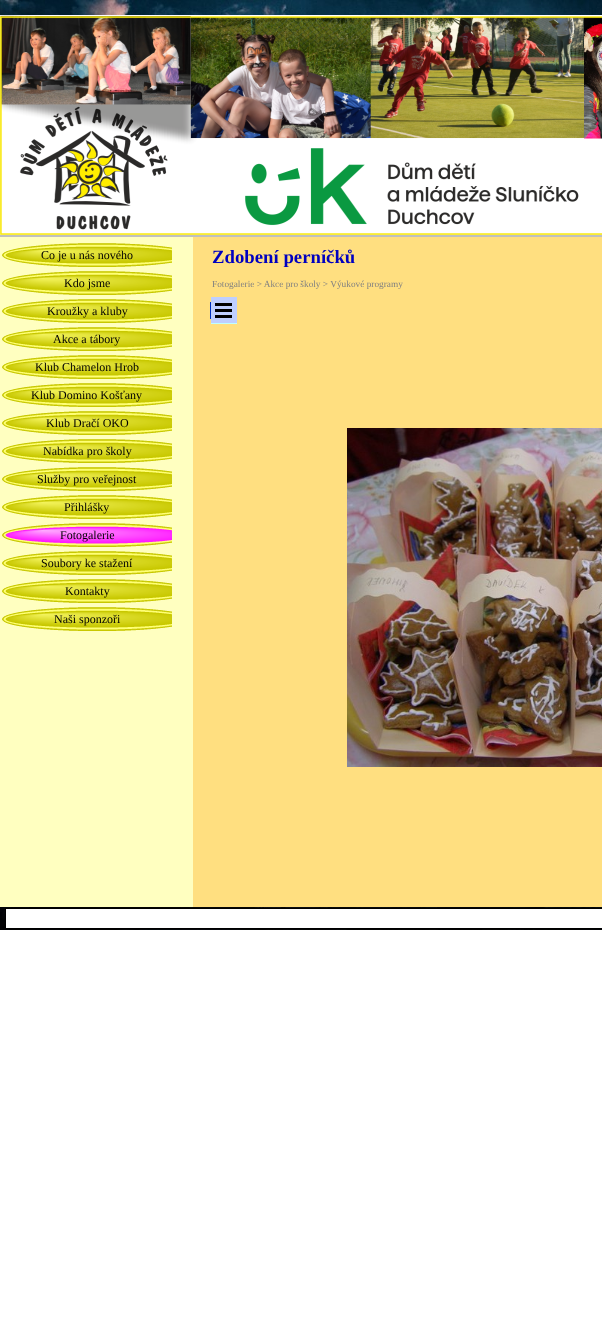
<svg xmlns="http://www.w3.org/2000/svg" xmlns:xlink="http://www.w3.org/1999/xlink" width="602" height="1319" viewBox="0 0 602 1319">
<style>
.cls-1{font:12px Liberation Serif;fill:#000000}
.cls-2{font:bold 18.75px Liberation Serif;fill:#0000c0}
.cls-3{font:9.3px Liberation Serif;fill:#808080}
</style>
<rect width="100%" height="100%" fill="#ffffff"/>
<image xlink:href="image0.png" x="0" y="0" width="602" height="930"/>
<rect fill="#c0c0c0" x="0" y="235" width="602" height="2"/>
<image xlink:href="image1.png" x="0" y="15" width="602" height="220"/>
<rect fill="#ffffc0" x="0" y="237" width="193" height="670"/>
<image xlink:href="image2.png" x="2" y="243" width="170" height="24"/>
<image xlink:href="image2.png" x="2" y="271" width="170" height="24"/>
<image xlink:href="image2.png" x="2" y="299" width="170" height="24"/>
<image xlink:href="image2.png" x="2" y="327" width="170" height="24"/>
<image xlink:href="image2.png" x="2" y="355" width="170" height="24"/>
<image xlink:href="image2.png" x="2" y="383" width="170" height="24"/>
<image xlink:href="image2.png" x="2" y="411" width="170" height="24"/>
<image xlink:href="image2.png" x="2" y="439" width="170" height="24"/>
<image xlink:href="image2.png" x="2" y="467" width="170" height="24"/>
<image xlink:href="image2.png" x="2" y="495" width="170" height="24"/>
<image xlink:href="image3.png" x="2" y="523" width="170" height="24"/>
<image xlink:href="image2.png" x="2" y="551" width="170" height="24"/>
<image xlink:href="image2.png" x="2" y="579" width="170" height="24"/>
<image xlink:href="image2.png" x="2" y="607" width="170" height="24"/>
<rect fill="#ffdf80" x="193" y="237" width="409" height="670"/>
<rect fill="#0030bf" x="210" y="302" width="1" height="17"/>
<rect fill="#bfcfff" x="211" y="297" width="26" height="26"/>
<rect fill="#c0ffff" x="211" y="323" width="26" height="1"/>
<rect fill="#000000" x="215" y="303" width="17" height="3"/>
<rect fill="#000000" x="215" y="309" width="17" height="3"/>
<rect fill="#000000" x="215" y="315" width="17" height="3"/>
<image xlink:href="image4.png" x="347" y="428" width="255" height="339"/>
<rect fill="#ffffff" stroke="#000000" x="5.5" y="908.5" width="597" height="20"/>
<text class="cls-1" x="41" y="259">Co je u nás nového</text>
<text class="cls-1" x="64" y="287">Kdo jsme</text>
<text class="cls-1" x="47" y="315">Kroužky a kluby</text>
<text class="cls-1" x="53" y="343">Akce a tábory</text>
<text class="cls-1" x="35" y="371">Klub Chamelon Hrob</text>
<text class="cls-1" x="31" y="399">Klub Domino Košťany</text>
<text class="cls-1" x="46" y="427">Klub Dračí OKO</text>
<text class="cls-1" x="43" y="455">Nabídka pro školy</text>
<text class="cls-1" x="37" y="483">Služby pro veřejnost</text>
<text class="cls-1" x="64" y="511">Přihlášky</text>
<text class="cls-1" x="60" y="539">Fotogalerie</text>
<text class="cls-1" x="41" y="567">Soubory ke stažení</text>
<text class="cls-1" x="65" y="595">Kontakty</text>
<text class="cls-1" x="54" y="623">Naši sponzoři</text>
<text class="cls-2" x="212" y="263">Zdobení perníčků</text>
<text class="cls-3" x="212" y="287">Fotogalerie &gt; Akce pro školy &gt; Výukové programy</text>
</svg>
